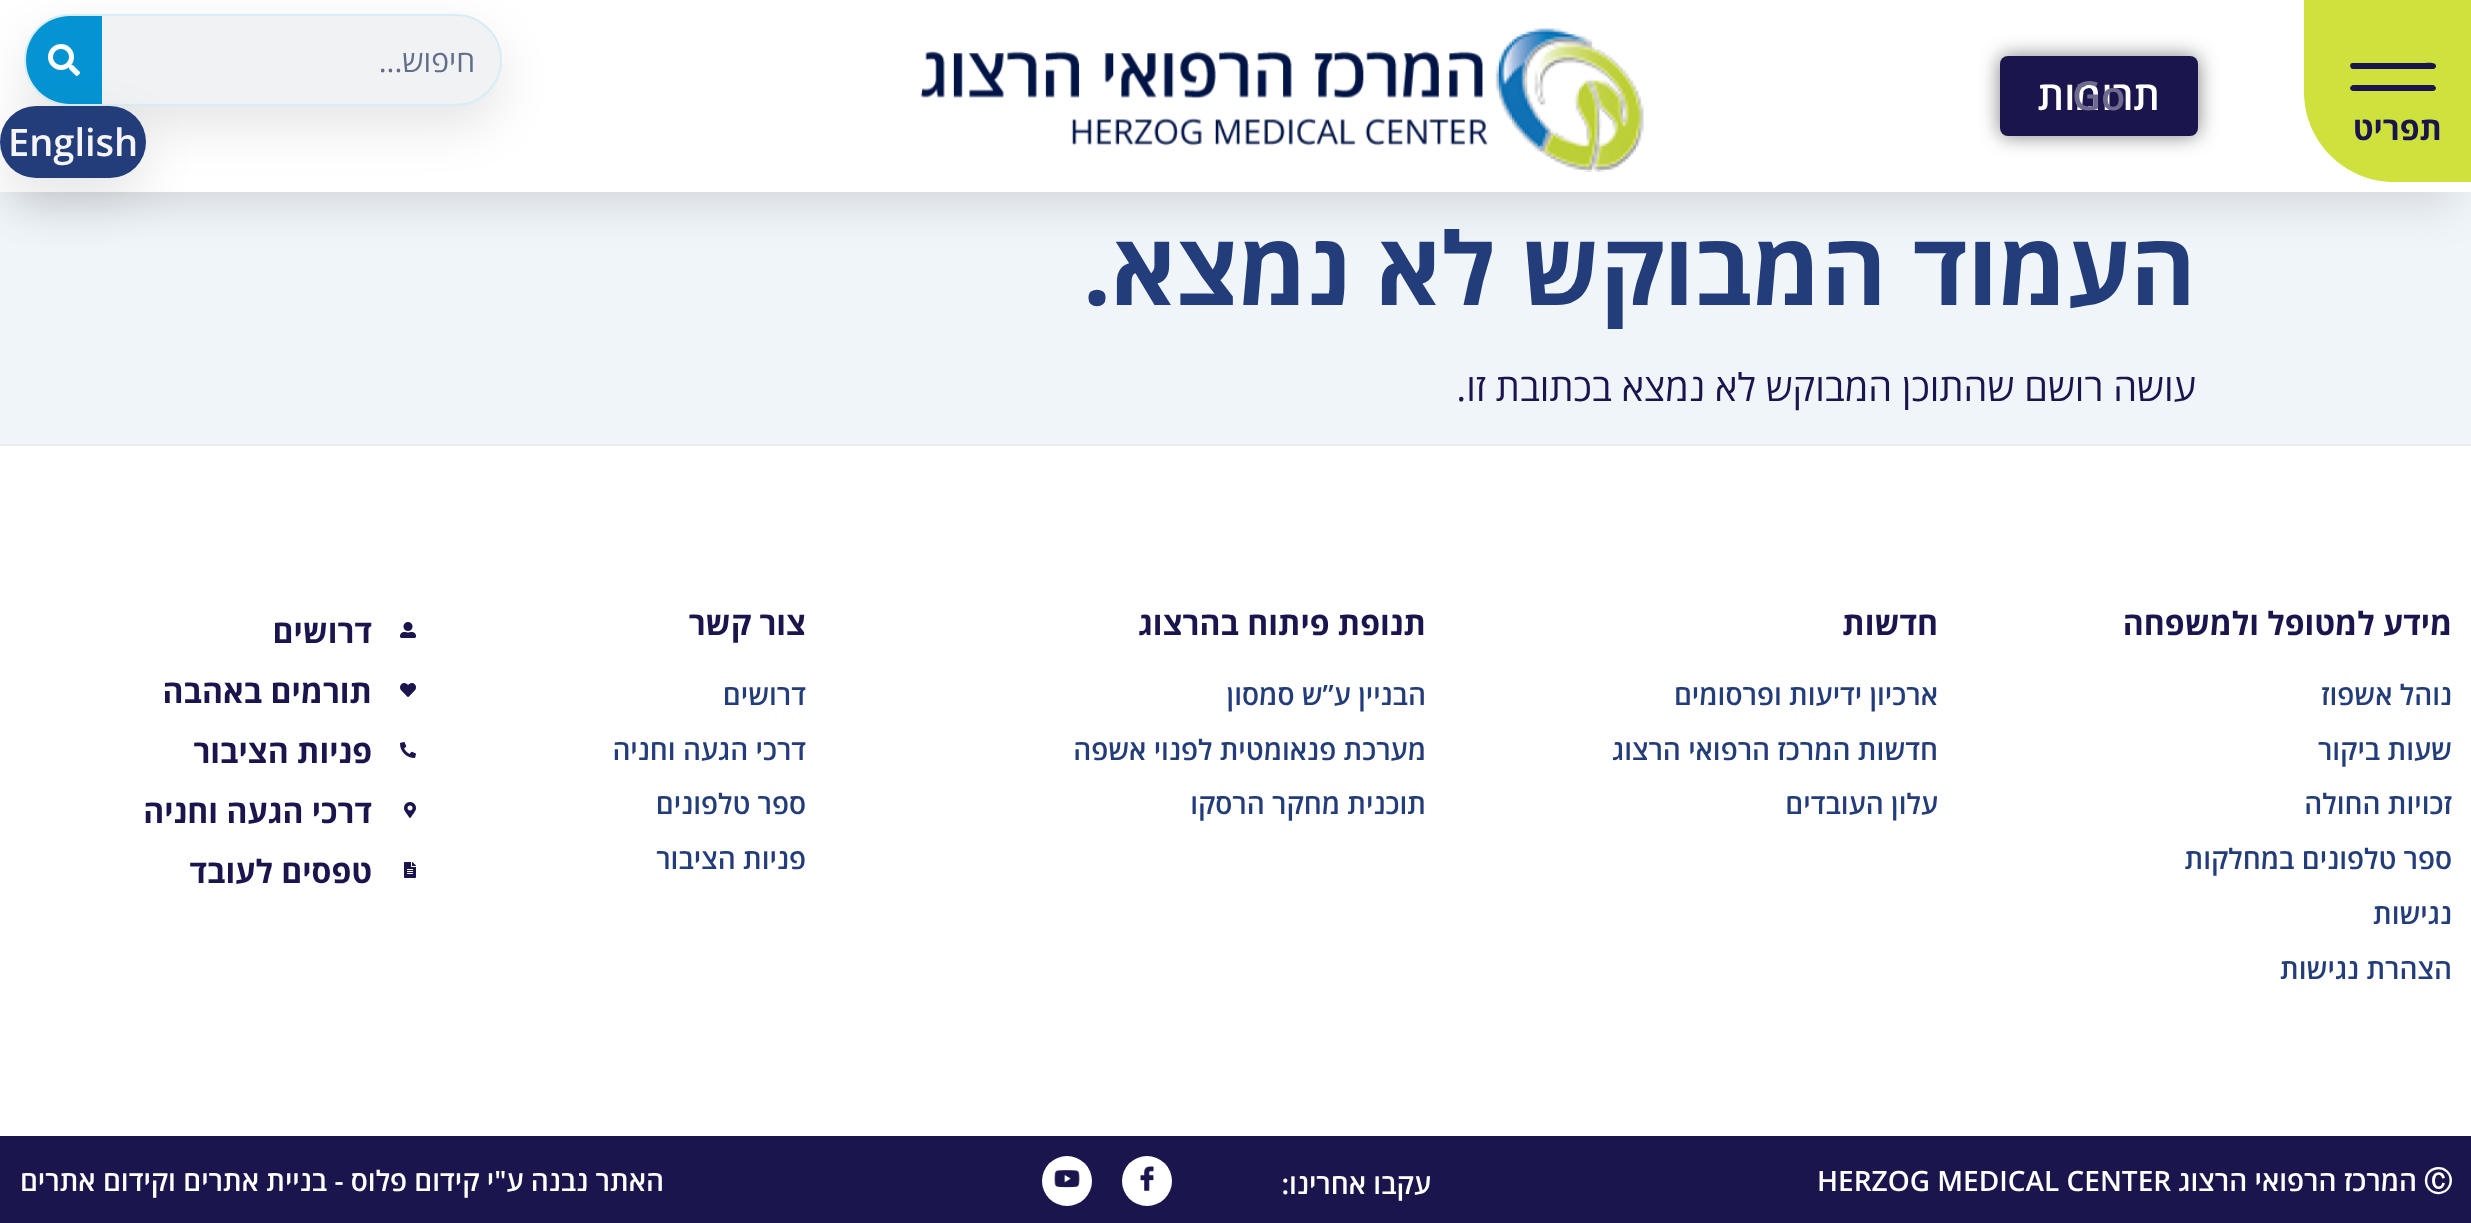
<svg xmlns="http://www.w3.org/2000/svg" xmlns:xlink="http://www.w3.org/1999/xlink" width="2471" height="1223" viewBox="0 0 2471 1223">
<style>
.cls-1{font:600 40px Open Sans;direction:rtl;fill:#ffffff}
.cls-2{font:600 40px Open Sans;fill:#6f6b8f}
.cls-3{font:30px Open Sans;direction:rtl;fill:#606d8b}
.cls-4{font:600 38px Open Sans;fill:#f5f5f7}
.cls-5{font:bold 32px Open Sans;direction:rtl;fill:#1b154e}
.cls-6{font:bold 100px Open Sans;direction:rtl;fill:#233c7a}
.cls-7{font:38px Open Sans;direction:rtl;fill:#1b154e}
.cls-8{font:600 28px Open Sans;direction:rtl;fill:#233c7a}
.cls-9{font:bold 28px WenQuanYi Zen Hei;fill:#ffffff}
.cls-10{font:600 28px Open Sans;direction:rtl;fill:#ffffff}
.cls-11{font:600 28px Open Sans;fill:#ffffff}
</style>
<rect width="100%" height="100%" fill="#f0f5f9"/>
<rect fill="#000000" fill-opacity="0.13" filter="blur(24px)" x="16" y="42" width="2440" height="160"/>
<rect fill="#ffffff" x="0" y="0" width="2471" height="192"/>
<rect fill="#000000" fill-opacity="0.5" filter="blur(10px)" x="2000" y="56" width="198" height="80" rx="8"/>
<rect fill="#1b154e" x="2000" y="56" width="198" height="80" rx="8"/>
<image xlink:href="image0.png" x="920" y="28" width="724" height="144"/>
<rect fill="#000000" fill-opacity="0.1" filter="blur(25px)" x="24" y="34" width="478" height="92" rx="46"/>
<rect fill="#f1f2f3" stroke="#d7edf7" stroke-width="2" x="25" y="15" width="476" height="90" rx="45"/>
<path fill="#0594d3" d="M70 16H102V104H70C45.5 104 26 84.5 26 60C26 35.5 45.5 16 70 16Z"/>
<image xlink:href="image1.png" x="48" y="44" width="32" height="32"/>
<rect fill="#000000" fill-opacity="0.1" filter="blur(25px)" x="0" y="126" width="146" height="72" rx="36"/>
<rect fill="#233c7a" x="0" y="106" width="146" height="72" rx="36"/>
<path fill="#cee13c" d="M2304 0H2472V182H2394C2344.5 182 2304 141.5 2304 92Z"/>
<path fill="#1b154e" d="M2436 88C2436 90 2434 91 2433 91H2353C2352 91 2350 90 2350 88C2350 87 2352 85 2353 85H2433C2434 85 2436 87 2436 88Z"/>
<path fill="#1b154e" d="M2353 69H2434L2436 67C2437 61 2427 63 2420 63H2352C2349 64 2350 69 2353 69Z"/>
<rect fill="#ffffff" x="0" y="446" width="2471" height="690"/>
<rect fill="#eaeaef" x="0" y="444" width="2471" height="2"/>
<image xlink:href="image2.png" x="400" y="622" width="16" height="16"/>
<image xlink:href="image3.png" x="400" y="683" width="16" height="14"/>
<image xlink:href="image4.png" x="400" y="742" width="16" height="16"/>
<image xlink:href="image5.png" x="404" y="802" width="12" height="16"/>
<image xlink:href="image6.png" x="404" y="862" width="12" height="16"/>
<rect fill="#1b154e" x="0" y="1136" width="2471" height="87"/>
<circle fill="#ffffff" cx="1147" cy="1181" r="25"/>
<image xlink:href="image7.png" x="1140" y="1166" width="14" height="25"/>
<circle fill="#ffffff" cx="1067" cy="1181" r="25"/>
<image xlink:href="image8.png" x="1054" y="1170" width="26" height="18"/>
<text class="cls-1" x="2160" y="110">תרומות</text>
<text class="cls-2" x="2072" y="110">Go</text>
<text class="cls-3" x="475" y="72">חיפוש...</text>
<text class="cls-4" x="8" y="156">English</text>
<text class="cls-5" x="2442" y="140">תפריט</text>
<text class="cls-6" x="2196" y="305">העמוד המבוקש לא נמצא.</text>
<text class="cls-7" x="2196" y="401">עושה רושם שהתוכן המבוקש לא נמצא בכתובת זו.</text>
<text class="cls-5" x="2452" y="635">מידע למטופל ולמשפחה</text>
<text class="cls-8"><tspan x="2452" y="705">נוהל אשפוז</tspan><tspan x="2452" y="760">שעות ביקור</tspan><tspan x="2452" y="814">זכויות החולה</tspan><tspan x="2452" y="869">ספר טלפונים במחלקות</tspan><tspan x="2452" y="924">נגישות</tspan><tspan x="2452" y="979">הצהרת נגישות</tspan></text>
<text class="cls-5" x="1938" y="635">חדשות</text>
<text class="cls-8"><tspan x="1938" y="705">ארכיון ידיעות ופרסומים</tspan><tspan x="1938" y="760">חדשות המרכז הרפואי הרצוג</tspan><tspan x="1938" y="814">עלון העובדים</tspan></text>
<text class="cls-5" x="1426" y="635">תנופת פיתוח בהרצוג</text>
<text class="cls-8"><tspan x="1426" y="705">הבניין ע”ש סמסון</tspan><tspan x="1426" y="760">מערכת פנאומטית לפנוי אשפה</tspan><tspan x="1426" y="814">תוכנית מחקר הרסקו</tspan></text>
<text class="cls-5" x="806" y="635">צור קשר</text>
<text class="cls-8"><tspan x="806" y="705">דרושים</tspan><tspan x="806" y="760">דרכי הגעה וחניה</tspan><tspan x="806" y="814">ספר טלפונים</tspan><tspan x="806" y="869">פניות הציבור</tspan></text>
<text class="cls-5"><tspan x="372" y="643">דרושים</tspan><tspan x="372" y="703">תורמים באהבה</tspan><tspan x="372" y="763">פניות הציבור</tspan><tspan x="372" y="823">דרכי הגעה וחניה</tspan><tspan x="372" y="883">טפסים לעובד</tspan></text>
<text class="cls-9" x="2424" y="1191">Ⓒ</text>
<text class="cls-10" x="2417" y="1191">המרכז הרפואי הרצוג</text>
<text class="cls-11" x="1817" y="1191">HERZOG MEDICAL CENTER</text>
<text class="cls-10" x="1431" y="1194">עקבו אחרינו:</text>
<text class="cls-10" x="664" y="1191">האתר נבנה ע"י קידום פלוס - בניית אתרים וקידום אתרים</text>
</svg>
